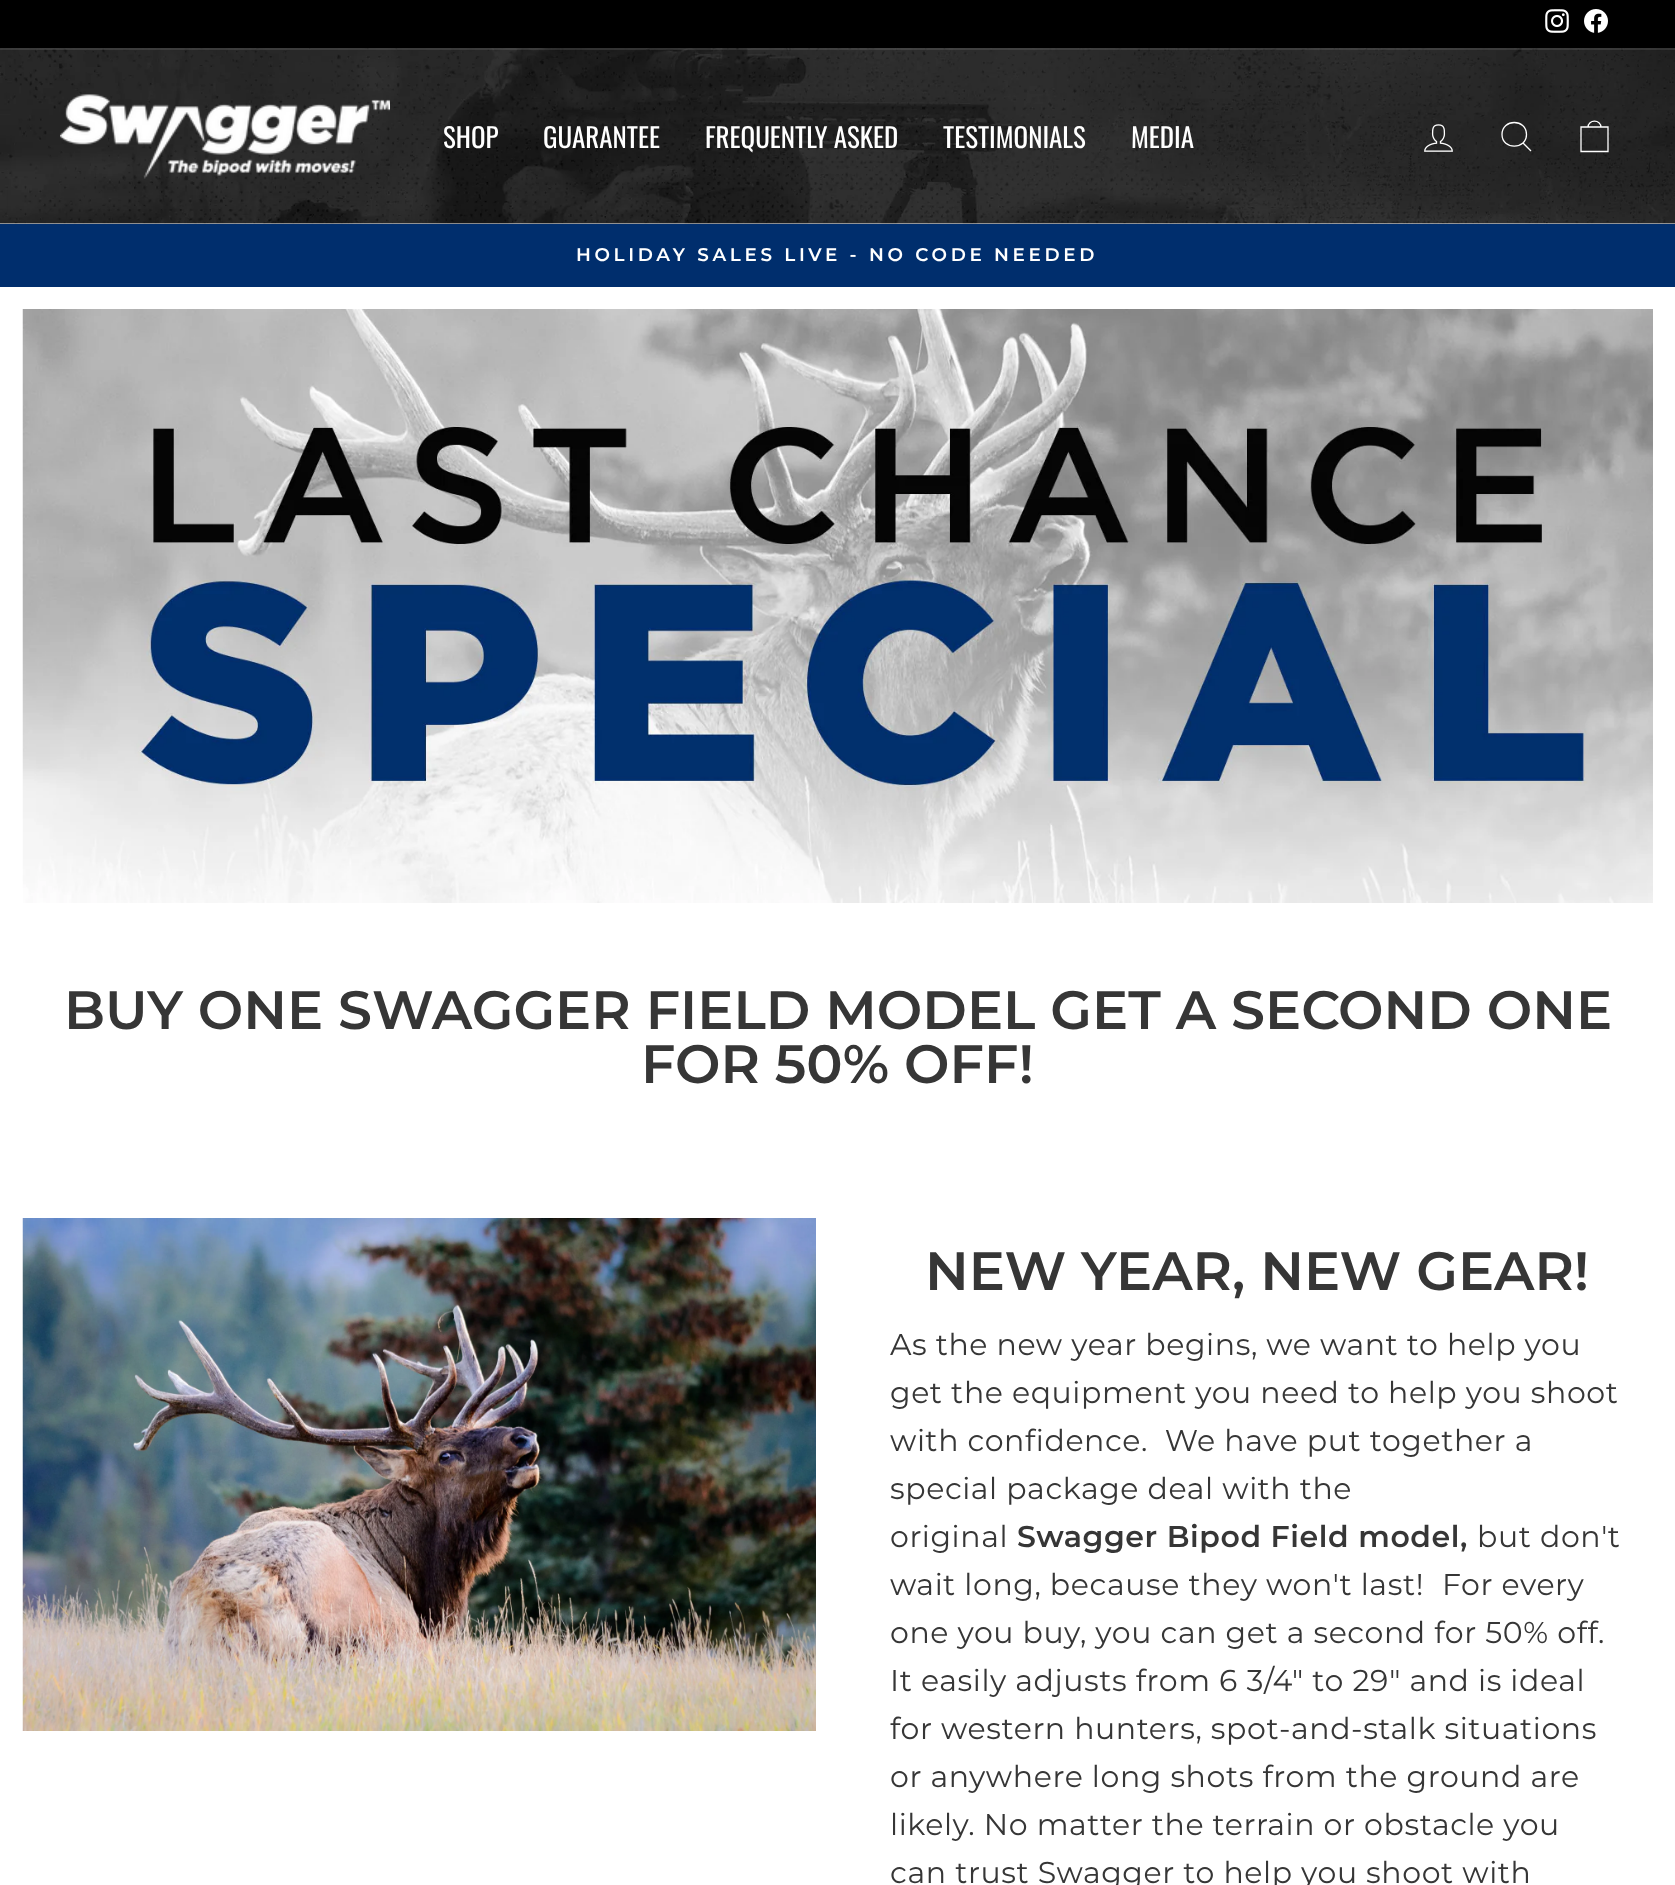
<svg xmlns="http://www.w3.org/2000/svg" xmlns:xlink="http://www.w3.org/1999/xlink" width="1675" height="1885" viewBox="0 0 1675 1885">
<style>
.cls-1{font:27px Oswald;fill:#ffffff}
.cls-2{font:600 18.35px Montserrat;letter-spacing:3.65px;fill:#ffffff}
.cls-3{font:600 54px Montserrat;fill:#363636}
.cls-4{font:100 30px Montserrat;letter-spacing:0.6px;fill:#363636}
.cls-5{font:600 30px Montserrat;letter-spacing:0.6px;fill:#363636}
</style>
<rect width="100%" height="100%" fill="#ffffff"/>
<rect fill="#000000" x="0" y="0" width="1675" height="48"/>
<image xlink:href="image0.png" x="1545" y="9" width="24" height="24"/>
<image xlink:href="image1.png" x="1584" y="9" width="24" height="24"/>
<image xlink:href="image2.png" x="0" y="48" width="1675" height="176"/>
<rect fill="#ffffff" fill-opacity="0.1" x="0" y="48" width="1675" height="2"/>
<image xlink:href="image3.png" x="60" y="94" width="330" height="85"/>
<image xlink:href="image4.png" x="1424" y="124" width="29" height="28"/>
<path fill="none" stroke="#ffffff" stroke-width="1.3" d="M1526.5 134.5C1526.5 150 1502 150 1502 134.5C1502 118.5 1526.5 118.5 1526.5 134.5ZM1531 151L1523 143"/>
<path fill="none" stroke="#ffffff" stroke-width="1.3" d="M1581 127H1608V151.5H1581ZM1588 127.5C1588 119 1601 119 1601 127.5"/>
<rect fill="#002e6d" x="0" y="224" width="1675" height="63"/>
<image xlink:href="image5.png" x="22" y="309" width="1631" height="594"/>
<image xlink:href="image6.png" x="22" y="1218" width="794" height="513"/>
<text class="cls-1" x="443" y="148">SHOP</text>
<text class="cls-1" x="543" y="148">GUARANTEE</text>
<text class="cls-1" x="705" y="148">FREQUENTLY ASKED</text>
<text class="cls-1" x="943" y="148">TESTIMONIALS</text>
<text class="cls-1" x="1131" y="148">MEDIA</text>
<text class="cls-2" x="576" y="261">HOLIDAY SALES LIVE - NO CODE NEEDED</text>
<text class="cls-3" x="64" y="1029">BUY ONE SWAGGER FIELD MODEL GET A SECOND ONE</text>
<text class="cls-3" x="641" y="1083">FOR 50% OFF!</text>
<text class="cls-3" x="925" y="1290">NEW YEAR, NEW GEAR!</text>
<text class="cls-4" xml:space="preserve"><tspan x="890" y="1355">As the new year begins, we want to help you</tspan><tspan x="890" y="1403">get the equipment you need to help you shoot</tspan><tspan x="890" y="1451">with confidence.  We have put together a</tspan><tspan x="890" y="1499">special package deal with the</tspan><tspan x="890" y="1547">original</tspan></text>
<text class="cls-5" x="1017" y="1547">Swagger Bipod Field model,</text>
<text class="cls-4" x="1477" y="1547">but don't</text>
<text class="cls-4" x="890" y="1595">wait long, because they won't last!</text>
<text class="cls-4" x="1442" y="1595">For every</text>
<text class="cls-4"><tspan x="890" y="1643">one you buy, you can get a second for 50% off.</tspan><tspan x="890" y="1691">It easily adjusts from 6 3/4" to 29" and is ideal</tspan><tspan x="890" y="1739">for western hunters, spot-and-stalk situations</tspan><tspan x="890" y="1787">or anywhere long shots from the ground are</tspan><tspan x="890" y="1835">likely. No matter the terrain or obstacle you</tspan><tspan x="890" y="1883">can trust Swagger to help you shoot with</tspan></text>
</svg>
